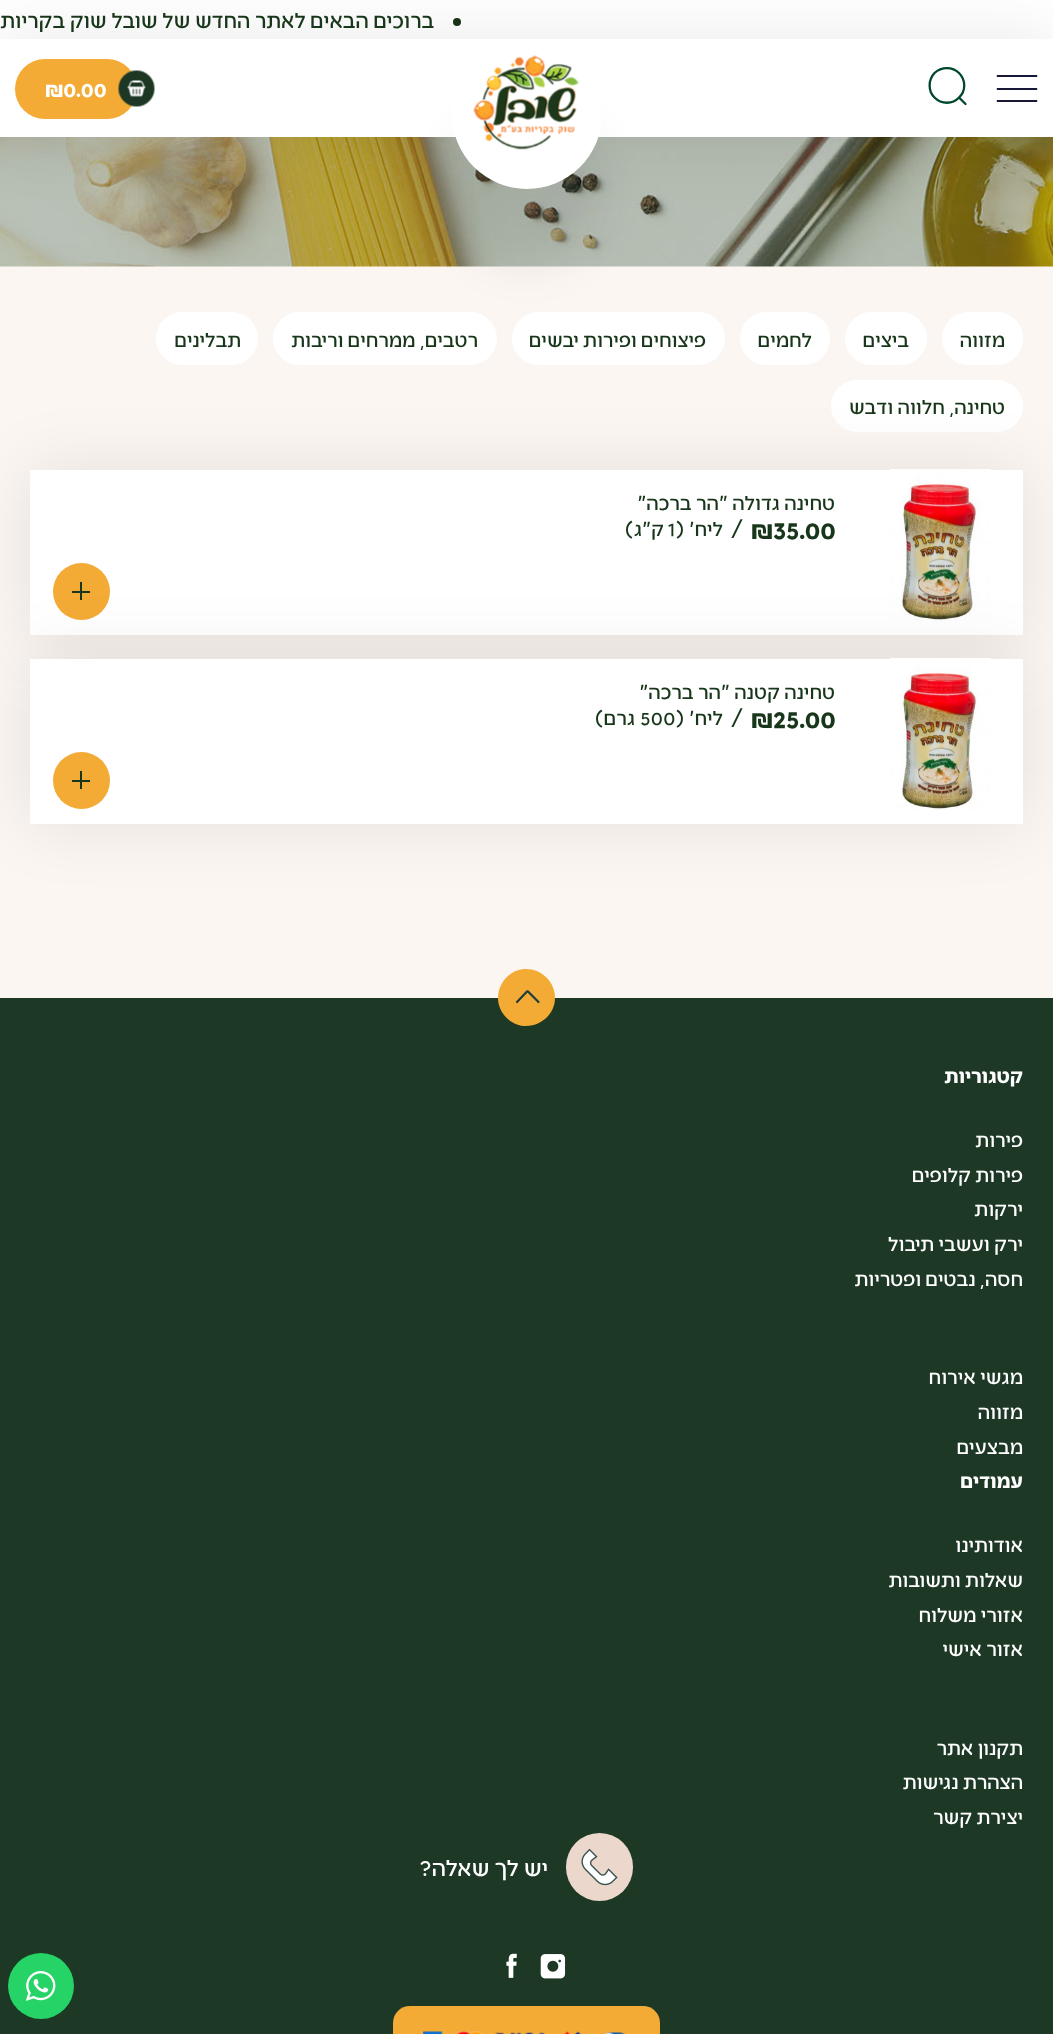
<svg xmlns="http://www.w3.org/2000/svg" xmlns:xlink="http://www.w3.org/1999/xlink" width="1053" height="2034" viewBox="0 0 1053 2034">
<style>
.cls-1{font:500 22.5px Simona;direction:rtl;fill:#18361a}
.cls-2{font:bold 22.5px Simona;fill:#ffffff}
.cls-3{font:500 21px Simona;direction:rtl;fill:#18361a}
.cls-4{font:bold 27px Simona;fill:#18361a}
.cls-5{font:500 21px Simona;fill:#18361a}
.cls-6{font:bold 21px Simona;direction:rtl;fill:#ffffff}
.cls-7{font:500 21px Simona;direction:rtl;fill:#ffffff}
.cls-8{font:500 24px Simona;direction:rtl;fill:#ffffff}
</style>
<rect width="100%" height="100%" fill="#fcf6f3"/>
<rect fill="#ffffff" x="0" y="0" width="1053" height="39"/>
<circle fill="#18361a" cx="457" cy="22" r="4"/>
<image xlink:href="image2.png" x="0" y="137" width="1053" height="130"/>
<rect fill="#000000" fill-opacity="0.09" filter="blur(33px)" x="0" y="39" width="1053" height="98"/>
<rect fill="#ffffff" x="0" y="39" width="1053" height="98"/>
<path fill="none" stroke="#171738" stroke-width="1.8" stroke-linecap="round" d="M997.5 76H1036.5M997.5 89H1036.5M997.5 101H1036.5"/>
<path fill="none" stroke="#00482b" stroke-width="2.3" d="M934.5 73C941.5 66.5 952.5 66.5 959 73C966 80 966 91 959 97.5C952.5 104.5 941.5 104.5 934.5 97.5C928 91 928 80 934.5 73Z"/>
<path fill="none" stroke="#00482b" stroke-width="2.3" stroke-linecap="round" d="M959.5 98L965.5 104"/>
<rect fill="#ffffff" x="512" y="312" width="213" height="53" rx="26.5"/>
<rect fill="#ffffff" x="273" y="312" width="224" height="53" rx="26.5"/>
<rect fill="#000000" fill-opacity="0.08" filter="blur(22.5px)" x="452" y="114" width="150" height="150" rx="75"/>
<circle fill="#ffffff" cx="527" cy="114" r="75"/>
<image xlink:href="image0.png" x="473" y="55" width="107" height="95"/>
<rect fill="#f4ab36" x="15" y="59" width="122" height="60" rx="30"/>
<image xlink:href="image1.png" x="118" y="70" width="37" height="37"/>
<rect fill="#ffffff" x="942" y="312" width="81" height="53" rx="26.5"/>
<rect fill="#ffffff" x="845" y="312" width="82" height="53" rx="26.5"/>
<rect fill="#ffffff" x="740" y="312" width="90" height="53" rx="26.5"/>
<rect fill="#ffffff" x="156" y="312" width="102" height="53" rx="26.5"/>
<rect fill="#ffffff" x="831" y="380" width="192" height="52" rx="26"/>
<rect fill="#000000" fill-opacity="0.09" filter="blur(33px)" x="30" y="470" width="993" height="165"/>
<rect fill="#ffffff" x="30" y="470" width="993" height="165"/>
<image xlink:href="image3.png" x="890" y="469" width="101" height="152"/>
<circle fill="#f4ab36" cx="81.5" cy="591.5" r="28.5"/>
<rect fill="#18361a" x="72" y="591" width="18" height="2"/>
<rect fill="#18361a" x="80" y="582" width="2" height="18"/>
<rect fill="#000000" fill-opacity="0.09" filter="blur(33px)" x="30" y="659" width="993" height="165"/>
<rect fill="#ffffff" x="30" y="659" width="993" height="165"/>
<image xlink:href="image4.png" x="890" y="658" width="101" height="152"/>
<circle fill="#f4ab36" cx="81.5" cy="780.5" r="28.5"/>
<rect fill="#18361a" x="72" y="780" width="18" height="2"/>
<rect fill="#18361a" x="80" y="771" width="2" height="18"/>
<rect fill="#1d3824" x="0" y="998" width="1053" height="1036"/>
<path fill="#f4ab36" d="M526 1026C542 1026 555 1013 555 998C555 982 542 969 526 969C511 969 498 982 498 998C498 1013 511 1026 526 1026Z"/>
<path fill="none" stroke="#1e3d3d" stroke-width="2.2" stroke-linecap="round" d="M528 991.5L538.5 1002M527 991.5L517 1002"/>
<rect fill="#ecd7cc" x="566" y="1833" width="67" height="68" rx="33.5"/>
<image xlink:href="image5.png" x="581" y="1848" width="37" height="38"/>
<image xlink:href="image6.png" x="540" y="1954" width="26" height="25"/>
<image xlink:href="image7.png" x="506" y="1953" width="11" height="25"/>
<path fill="#f4ab36" d="M410 2006H643C652.5 2006 660 2013.5 660 2023V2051H393V2023C393 2013.5 400.5 2006 410 2006Z"/>
<image xlink:href="image8.png" x="423" y="2031" width="203" height="3"/>
<circle fill="#25d366" cx="41" cy="1986" r="33"/>
<image xlink:href="image9.png" x="26" y="1971" width="30" height="30"/>
<text class="cls-1" x="434" y="28">ברוכים הבאים לאתר החדש של שובל שוק בקריות</text>
<text class="cls-2" x="45" y="97">₪0.00</text>
<text class="cls-3" x="1005" y="347">מזווה</text>
<text class="cls-3" x="909" y="347">ביצים</text>
<text class="cls-3" x="812" y="347">לחמים</text>
<text class="cls-3" x="706" y="347">פיצוחים ופירות יבשים</text>
<text class="cls-3" x="478" y="347">רטבים, ממרחים וריבות</text>
<text class="cls-3" x="241" y="347">תבלינים</text>
<text class="cls-3" x="1005" y="414">טחינה, חלווה ודבש</text>
<text class="cls-3" x="835" y="510">טחינה גדולה "הר ברכה"</text>
<text class="cls-4" x="751" y="539">₪35.00</text>
<text class="cls-5" x="731" y="536">/</text>
<text class="cls-3" x="723" y="536">ליח' (</text>
<text class="cls-5" x="668" y="536">1</text>
<text class="cls-3" x="664" y="536">ק"ג)</text>
<text class="cls-3" x="835" y="699">טחינה קטנה "הר ברכה"</text>
<text class="cls-4" x="751" y="728">₪25.00</text>
<text class="cls-5" x="731" y="725">/</text>
<text class="cls-3" x="723" y="725">ליח' (</text>
<text class="cls-5" x="640" y="725">500</text>
<text class="cls-3" x="635" y="725">גרם)</text>
<text class="cls-6" x="1023" y="1083">קטגוריות</text>
<text class="cls-7"><tspan x="1023" y="1147">פירות</tspan><tspan x="1023" y="1182">פירות קלופים</tspan><tspan x="1023" y="1216">ירקות</tspan><tspan x="1023" y="1251">ירק ועשבי תיבול</tspan><tspan x="1023" y="1286">חסה, נבטים ופטריות</tspan></text>
<text class="cls-7"><tspan x="1023" y="1384">מגשי אירוח</tspan><tspan x="1023" y="1419">מזווה</tspan><tspan x="1023" y="1454">מבצעים</tspan></text>
<text class="cls-6" x="1023" y="1488">עמודים</text>
<text class="cls-7"><tspan x="1023" y="1552">אודותינו</tspan><tspan x="1023" y="1587">שאלות ותשובות</tspan><tspan x="1023" y="1622">אזורי משלוח</tspan><tspan x="1023" y="1656">אזור אישי</tspan></text>
<text class="cls-7"><tspan x="1023" y="1755">תקנון אתר</tspan><tspan x="1023" y="1789">הצהרת נגישות</tspan><tspan x="1023" y="1824">יצירת קשר</tspan></text>
<text class="cls-8" x="548" y="1876">יש לך שאלה?</text>
</svg>
